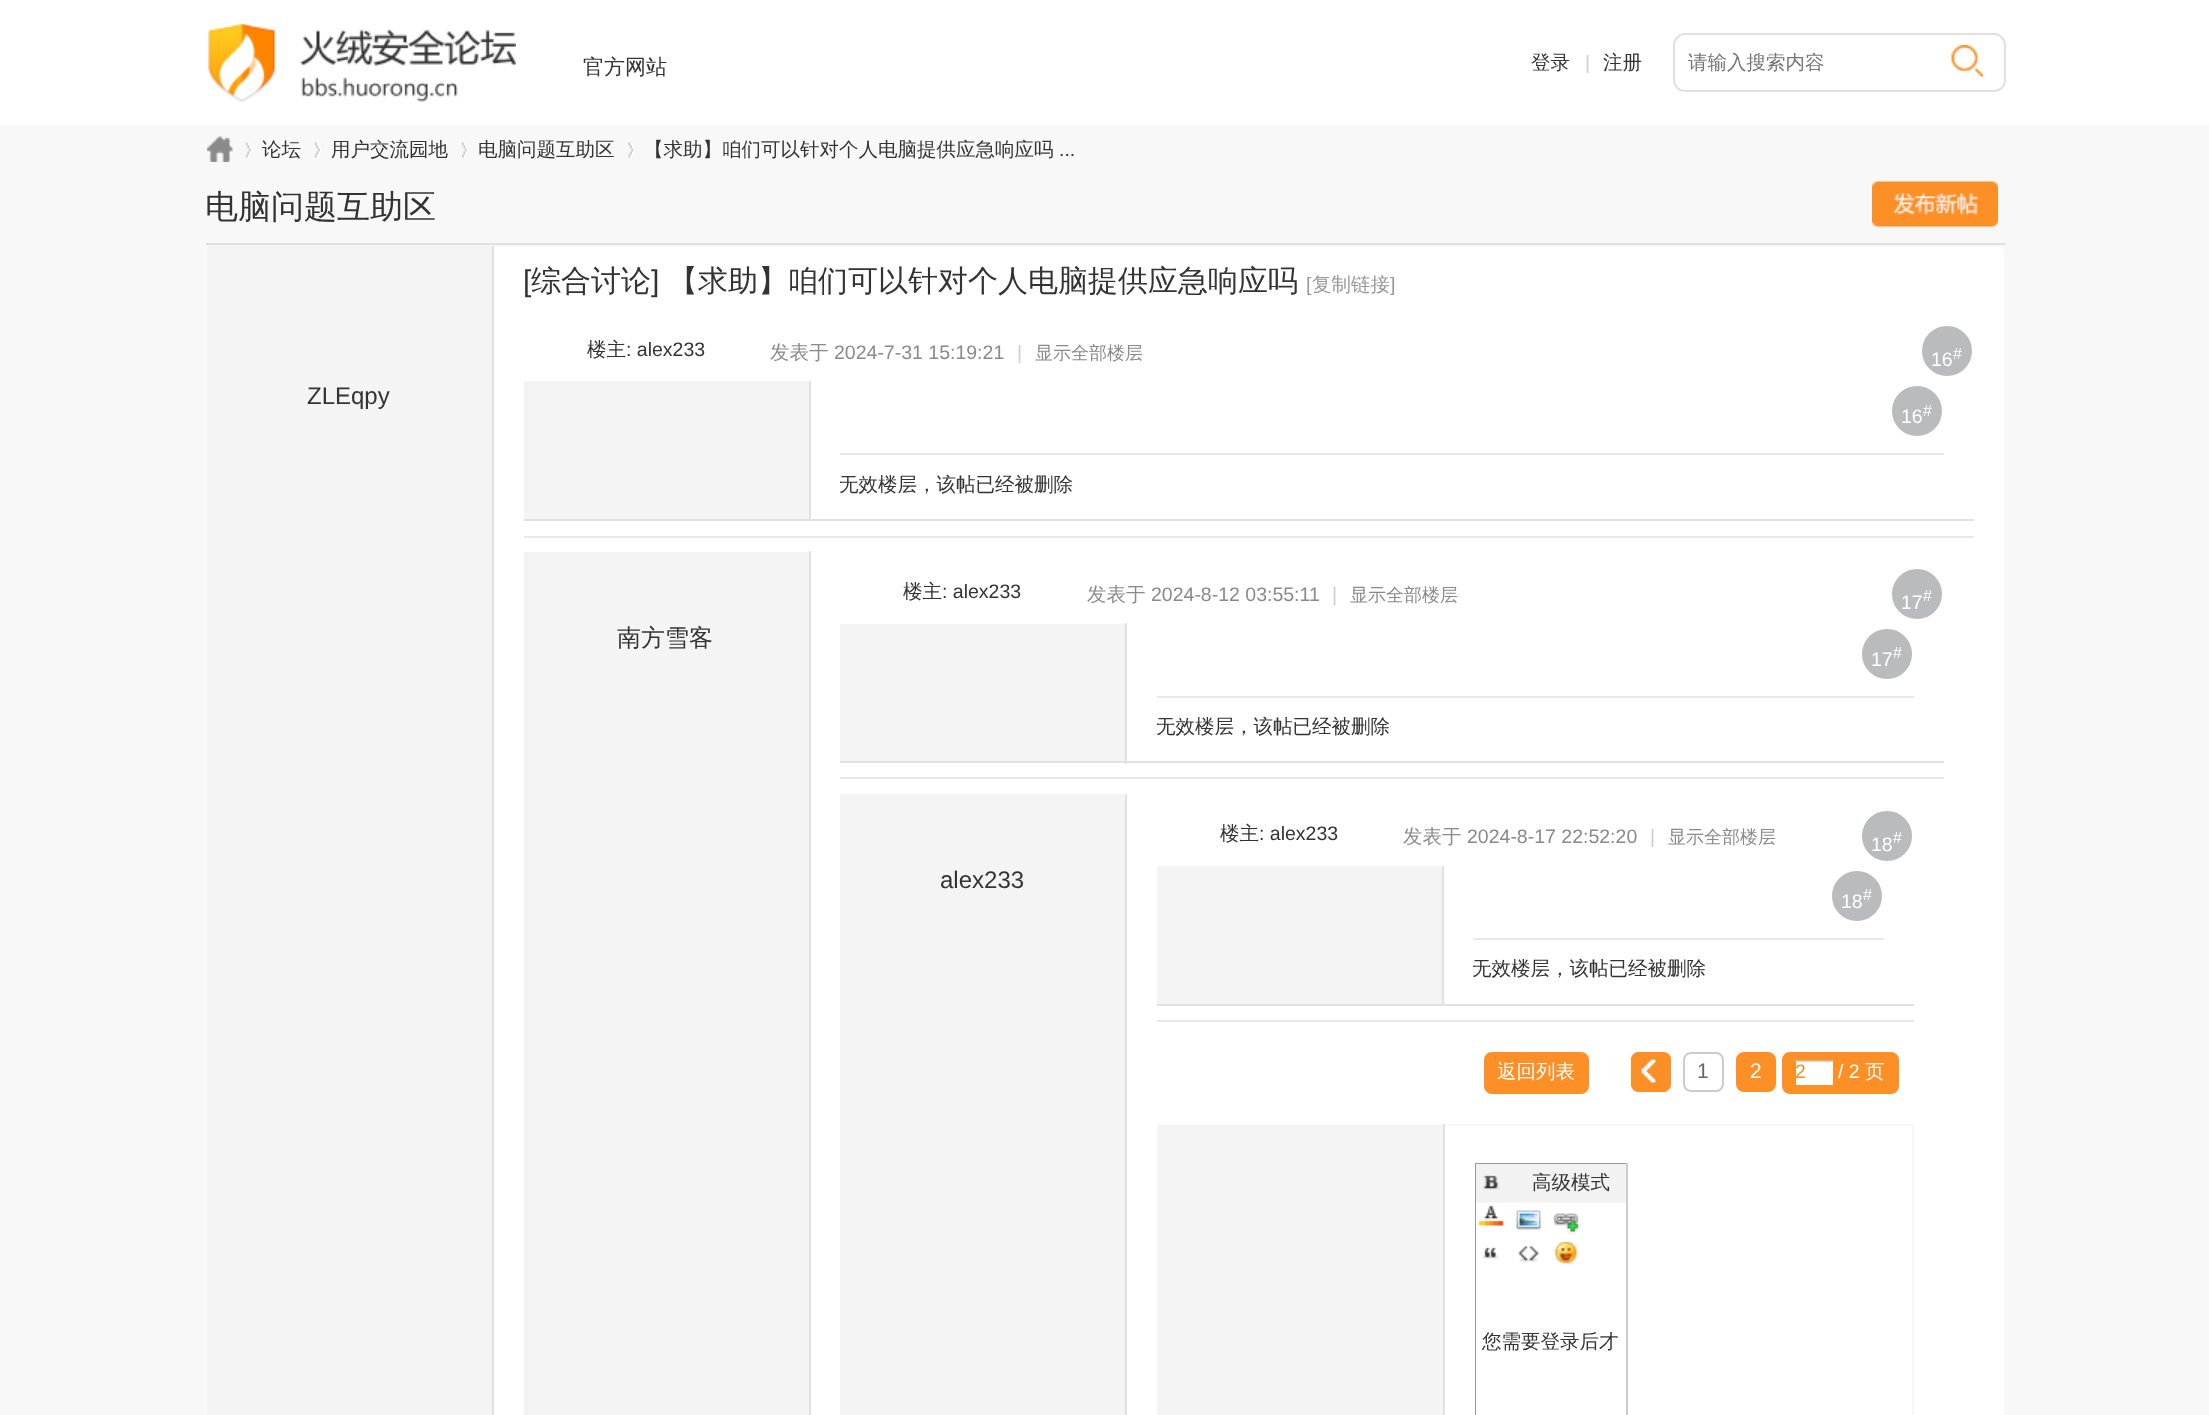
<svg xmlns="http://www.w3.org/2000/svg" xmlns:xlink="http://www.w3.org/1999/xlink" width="2209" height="1415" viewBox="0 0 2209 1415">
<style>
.cls-1{font:500 21px WenQuanYi Zen Hei;fill:#333333}
.cls-2{font:500 19.5px WenQuanYi Zen Hei;fill:#333333}
.cls-3{font:19.5px Liberation Sans;fill:#cccccc}
.cls-4{font:500 19.5px WenQuanYi Zen Hei;fill:#757575}
.cls-5{font:19.5px Liberation Sans;fill:#333333}
.cls-6{font:500 33px WenQuanYi Zen Hei;fill:#333333}
.cls-7{font:30px Liberation Sans;fill:#333333}
.cls-8{font:500 30px WenQuanYi Zen Hei;fill:#333333}
.cls-9{font:19.5px Liberation Sans;fill:#999999}
.cls-10{font:500 19.5px WenQuanYi Zen Hei;fill:#999999}
.cls-11{font:24px Liberation Sans;fill:#333333}
.cls-12{font:500 19.5px WenQuanYi Zen Hei;fill:#8b8a8a}
.cls-13{font:19.5px Liberation Sans;fill:#8b8a8a}
.cls-14{font:500 18px WenQuanYi Zen Hei;fill:#8b8a8a}
.cls-15{font:19.5px Liberation Sans;fill:#ffffff}
.cls-16{font:16px Liberation Sans;fill:#ffffff}
.cls-17{font:500 24px WenQuanYi Zen Hei;fill:#333333}
.cls-18{font:500 19.5px WenQuanYi Zen Hei;fill:#ffffff}
.cls-19{font:21px Liberation Sans;fill:#666666}
.cls-20{font:21px Liberation Sans;fill:#ffffff}
.cls-21{font:19.5px Liberation Sans;fill:#fc9026}
</style>
<rect width="100%" height="100%" fill="#f8f8f8"/>
<rect fill="#ffffff" x="0" y="0" width="2209" height="125"/>
<image xlink:href="image0.png" x="208" y="23" width="308" height="79"/>
<rect fill="none" stroke="#e1e1e1" stroke-width="2" x="1674" y="34" width="331" height="57" rx="11"/>
<image xlink:href="image1.png" x="1951" y="45" width="32" height="32"/>
<image xlink:href="image2.png" x="207" y="136" width="26" height="26"/>
<image xlink:href="image3.png" x="245" y="142" width="7" height="16"/>
<image xlink:href="image4.png" x="314" y="142" width="7" height="16"/>
<image xlink:href="image4.png" x="461" y="142" width="7" height="16"/>
<image xlink:href="image5.png" x="628" y="142" width="6" height="16"/>
<rect fill="#e3e0e0" x="206" y="243" width="1800" height="2"/>
<image xlink:href="image6.png" x="1872" y="181" width="126" height="46"/>
<rect fill="#ffffff" stroke="#f8f8f8" stroke-width="2" x="207" y="246" width="1798" height="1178" rx="7"/>
<rect fill="#e3e0e0" x="492" y="246" width="2" height="1169"/>
<rect fill="#f4f4f4" x="207" y="246" width="285" height="1169"/>
<rect fill="#e9e9e9" x="524" y="536" width="1450" height="2"/>
<circle fill="#babbbc" stroke="#ffffff" stroke-width="2" cx="1947" cy="351" r="26"/>
<rect fill="#e3e0e0" x="809" y="381" width="2" height="138"/>
<rect fill="#f4f4f4" x="524" y="381" width="285" height="138"/>
<rect fill="#e9e9e9" x="840" y="453" width="1104" height="2"/>
<circle fill="#babbbc" stroke="#ffffff" stroke-width="2" cx="1917" cy="411" r="26"/>
<rect fill="#e3e0e0" x="524" y="519" width="1450" height="2"/>
<rect fill="#e3e0e0" x="809" y="551" width="2" height="864"/>
<rect fill="#f4f4f4" x="524" y="552" width="285" height="863"/>
<rect fill="#e9e9e9" x="840" y="777" width="1104" height="2"/>
<circle fill="#babbbc" stroke="#ffffff" stroke-width="2" cx="1917" cy="594" r="26"/>
<rect fill="#e3e0e0" x="1125" y="623" width="2" height="141"/>
<rect fill="#e3e0e0" x="840" y="761" width="1104" height="2"/>
<rect fill="#f4f4f4" x="840" y="624" width="285" height="137"/>
<rect fill="#e9e9e9" x="1157" y="696" width="757" height="2"/>
<circle fill="#babbbc" stroke="#ffffff" stroke-width="2" cx="1887" cy="654" r="26"/>
<rect fill="#e3e0e0" x="1125" y="794" width="2" height="621"/>
<rect fill="#f4f4f4" x="840" y="794" width="285" height="621"/>
<rect fill="#e9e9e9" x="1157" y="1020" width="757" height="2"/>
<circle fill="#babbbc" stroke="#ffffff" stroke-width="2" cx="1887" cy="836" r="26"/>
<rect fill="#e3e0e0" x="1442" y="866" width="2" height="138"/>
<rect fill="#f4f4f4" x="1157" y="866" width="285" height="138"/>
<rect fill="#e9e9e9" x="1473" y="938" width="411" height="2"/>
<circle fill="#babbbc" stroke="#ffffff" stroke-width="2" cx="1857" cy="896" r="26"/>
<rect fill="#e3e0e0" x="1157" y="1004" width="757" height="2"/>
<rect fill="#fc9026" stroke="#fc9026" stroke-width="2" x="1485" y="1053" width="103" height="40" rx="7"/>
<rect fill="#fc9026" x="1631" y="1052" width="40" height="40" rx="8"/>
<image xlink:href="image7.png" x="1641" y="1059" width="15" height="24"/>
<rect fill="none" stroke="#fc9026" stroke-width="2" x="1632" y="1053" width="38" height="38" rx="7"/>
<rect fill="none" stroke="#cccccc" stroke-width="2" x="1684" y="1053" width="39" height="38" rx="7"/>
<rect fill="#fc9026" stroke="#fc9026" stroke-width="2" x="1737" y="1053" width="38" height="38" rx="7"/>
<rect fill="#fc9026" stroke="#fc9026" stroke-width="2" x="1783" y="1053" width="115" height="40" rx="7"/>
<rect fill="#ffffff" x="1796" y="1062" width="37" height="23"/>
<image xlink:href="image8.png" x="1795" y="1060" width="38" height="2"/>
<rect fill="none" stroke="#f8f8f8" stroke-width="2" x="1158" y="1125" width="755" height="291"/>
<rect fill="#e3e0e0" x="1443" y="1124" width="2" height="291"/>
<rect fill="#f4f4f4" x="1158" y="1125" width="285" height="290"/>
<rect fill="#999999" x="1475" y="1163" width="153" height="1"/>
<rect fill="#cccccc" x="1626" y="1163" width="2" height="252"/>
<rect fill="#999999" x="1475" y="1163" width="2" height="252"/>
<rect fill="#f2f2f2" x="1476" y="1164" width="150" height="38"/>
<rect fill="#f8f8f8" x="1476" y="1202" width="150" height="1"/>
<image xlink:href="image9.png" x="1483" y="1175" width="17" height="15"/>
<image xlink:href="image10.png" x="1478" y="1205" width="26" height="22"/>
<image xlink:href="image11.png" x="1516" y="1210" width="26" height="21"/>
<image xlink:href="image12.png" x="1553" y="1213" width="28" height="22"/>
<image xlink:href="image13.png" x="1482" y="1247" width="17" height="12"/>
<image xlink:href="image14.png" x="1517" y="1246" width="23" height="16"/>
<image xlink:href="image15.png" x="1552" y="1241" width="26" height="24"/>
<rect fill="#ffffff" x="1476" y="1203" width="1" height="212"/>
<text class="cls-1" x="583" y="74">官方网站</text>
<text class="cls-2" x="1531" y="69">登录</text>
<text class="cls-3" x="1585" y="69">|</text>
<text class="cls-2" x="1603" y="69">注册</text>
<text class="cls-4" x="1688" y="69">请输入搜索内容</text>
<text class="cls-2" x="262" y="156">论坛</text>
<text class="cls-2" x="331" y="156">用户交流园地</text>
<text class="cls-2" x="478" y="156">电脑问题互助区</text>
<text class="cls-2" x="644" y="156">【求助】咱们可以针对个人电脑提供应急响应吗</text>
<text class="cls-5" x="1059" y="156">...</text>
<text class="cls-6" x="205" y="218">电脑问题互助区</text>
<text class="cls-7" x="523" y="291">[</text>
<text class="cls-8" x="531" y="291">综合讨论</text>
<text class="cls-7" x="651" y="291">]</text>
<text class="cls-8" x="668" y="291">【求助】咱们可以针对个人电脑提供应急响应吗</text>
<text class="cls-9" x="1306" y="291">[</text>
<text class="cls-10" x="1312" y="291">复制链接</text>
<text class="cls-9" x="1390" y="291">]</text>
<text class="cls-11" x="307" y="404">ZLEqpy</text>
<text class="cls-2" x="587" y="356">楼主</text>
<text class="cls-5" x="626" y="356">: alex233</text>
<text class="cls-12" x="770" y="359">发表于</text>
<text class="cls-13" x="834" y="359">2024-7-31 15:19:21</text>
<text class="cls-3" x="1017" y="359">|</text>
<text class="cls-14" x="1035" y="359">显示全部楼层</text>
<text class="cls-15" x="1931" y="366">16</text>
<text class="cls-16" x="1953" y="359">#</text>
<text class="cls-15" x="1901" y="423">16</text>
<text class="cls-16" x="1923" y="416">#</text>
<text class="cls-2" x="839" y="491">无效楼层，该帖已经被删除</text>
<text class="cls-17" x="617" y="646">南方雪客</text>
<text class="cls-2" x="903" y="598">楼主</text>
<text class="cls-5" x="942" y="598">: alex233</text>
<text class="cls-12" x="1087" y="601">发表于</text>
<text class="cls-13" x="1151" y="601">2024-8-12 03:55:11</text>
<text class="cls-3" x="1332" y="601">|</text>
<text class="cls-14" x="1350" y="601">显示全部楼层</text>
<text class="cls-15" x="1901" y="609">17</text>
<text class="cls-16" x="1923" y="601">#</text>
<text class="cls-15" x="1871" y="666">17</text>
<text class="cls-16" x="1893" y="658">#</text>
<text class="cls-2" x="1156" y="733">无效楼层，该帖已经被删除</text>
<text class="cls-11" x="940" y="888">alex233</text>
<text class="cls-2" x="1220" y="840">楼主</text>
<text class="cls-5" x="1259" y="840">: alex233</text>
<text class="cls-12" x="1403" y="843">发表于</text>
<text class="cls-13" x="1467" y="843">2024-8-17 22:52:20</text>
<text class="cls-3" x="1650" y="843">|</text>
<text class="cls-14" x="1668" y="843">显示全部楼层</text>
<text class="cls-15" x="1871" y="851">18</text>
<text class="cls-16" x="1893" y="843">#</text>
<text class="cls-15" x="1841" y="908">18</text>
<text class="cls-16" x="1863" y="900">#</text>
<text class="cls-2" x="1472" y="975">无效楼层，该帖已经被删除</text>
<text class="cls-18" x="1497" y="1078">返回列表</text>
<text class="cls-19" x="1697" y="1078">1</text>
<text class="cls-20" x="1750" y="1078">2</text>
<text class="cls-21" x="1795" y="1078">2</text>
<text class="cls-15" x="1838" y="1078">/ 2</text>
<text class="cls-18" x="1865" y="1078">页</text>
<text class="cls-2" x="1532" y="1189">高级模式</text>
<text class="cls-2" x="1482" y="1348">您需要登录后才</text>
</svg>
